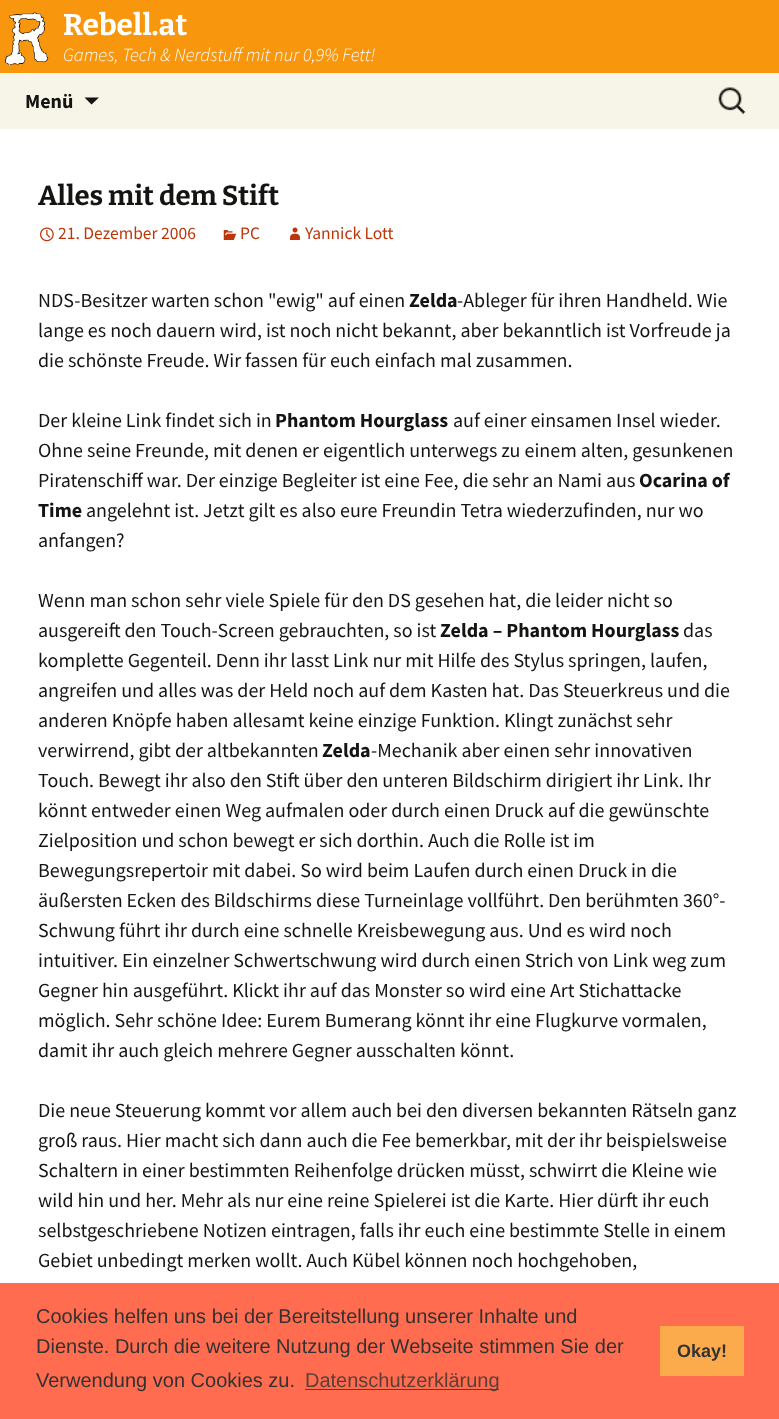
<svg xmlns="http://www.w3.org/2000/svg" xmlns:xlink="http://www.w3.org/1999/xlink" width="779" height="1419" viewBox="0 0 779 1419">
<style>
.cls-1{font:100 30px Bitter;fill:#ffffff}
.cls-2{font:italic 300 18.75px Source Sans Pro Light;fill:#ffffff}
.cls-3{font:bold 20px Source Sans Pro;fill:#141412}
.cls-4{font:100 27.5px Bitter;fill:#141412}
.cls-5{font:17.5px Source Sans Pro;fill:#bc360a}
.cls-6{font:20px Source Sans Pro;fill:#141412}
.cls-7{font:20px Liberation Sans;fill:#333232}
.cls-8{font:20px Liberation Sans;fill:#5c3e38}
.cls-9{font:bold 18px Liberation Sans;fill:#333232}
</style>
<rect width="100%" height="100%" fill="#ffffff"/>
<rect fill="#f8960d" x="0" y="0" width="779" height="73"/>
<image xlink:href="image0.png" x="5" y="12" width="44" height="53"/>
<rect fill="#f7f5e7" x="0" y="73" width="779" height="56"/>
<path fill="#141412" d="M84.5 97.5L91.5 104.5L99 97.5Z"/>
<image xlink:href="image1.png" x="718" y="87" width="28" height="27"/>
<image xlink:href="image2.png" x="40" y="227" width="14" height="15"/>
<image xlink:href="image3.png" x="223" y="230" width="14" height="10"/>
<image xlink:href="image4.png" x="290" y="227" width="10" height="13"/>
<rect fill="#ff6c4f" x="0" y="1283" width="779" height="136"/>
<rect fill="#5c3e38" x="305" y="1389" width="194" height="1"/>
<rect fill="#fcab4c" x="660" y="1326" width="84" height="50"/>
<text class="cls-1" x="63" y="35">Rebell.at</text>
<text class="cls-2" x="63" y="61">Games, Tech &amp; Nerdstuff mit nur 0,9% Fett!</text>
<text class="cls-3" x="25" y="108">Menü</text>
<text class="cls-4" x="38" y="205">Alles mit dem Stift</text>
<text class="cls-5" x="58" y="239">21. Dezember 2006</text>
<text class="cls-5" x="240" y="239">PC</text>
<text class="cls-5" x="305" y="239">Yannick Lott</text>
<text class="cls-6" x="38" y="307">NDS-Besitzer warten schon "ewig" auf einen</text>
<text class="cls-3" x="409" y="307">Zelda</text>
<text class="cls-6" x="457" y="307">-Ableger für ihren Handheld. Wie</text>
<text class="cls-6"><tspan x="38" y="337">lange es noch dauern wird, ist noch nicht bekannt, aber bekanntlich ist Vorfreude ja</tspan><tspan x="38" y="367">die schönste Freude. Wir fassen für euch einfach mal zusammen.</tspan></text>
<text class="cls-6" x="38" y="427">Der kleine Link findet sich in</text>
<text class="cls-3" x="275" y="427">Phantom Hourglass</text>
<text class="cls-6" x="453" y="427">auf einer einsamen Insel wieder.</text>
<text class="cls-6"><tspan x="38" y="457">Ohne seine Freunde, mit denen er eigentlich unterwegs zu einem alten, gesunkenen</tspan><tspan x="38" y="487">Piratenschiff war. Der einzige Begleiter ist eine Fee, die sehr an Nami aus</tspan></text>
<text class="cls-3" x="639" y="487">Ocarina of</text>
<text class="cls-3" x="38" y="517">Time</text>
<text class="cls-6" x="86" y="517">angelehnt ist. Jetzt gilt es also eure Freundin Tetra wiederzufinden, nur wo</text>
<text class="cls-6" x="38" y="547">anfangen?</text>
<text class="cls-6"><tspan x="38" y="607">Wenn man schon sehr viele Spiele für den DS gesehen hat, die leider nicht so</tspan><tspan x="38" y="637">ausgereift den Touch-Screen gebrauchten, so ist</tspan></text>
<text class="cls-3" x="440" y="637">Zelda – Phantom Hourglass</text>
<text class="cls-6" x="683" y="637">das</text>
<text class="cls-6"><tspan x="38" y="667">komplette Gegenteil. Denn ihr lasst Link nur mit Hilfe des Stylus springen, laufen,</tspan><tspan x="38" y="697">angreifen und alles was der Held noch auf dem Kasten hat. Das Steuerkreus und die</tspan><tspan x="38" y="727">anderen Knöpfe haben allesamt keine einzige Funktion. Klingt zunächst sehr</tspan><tspan x="38" y="757">verwirrend, gibt der altbekannten</tspan></text>
<text class="cls-3" x="322" y="757">Zelda</text>
<text class="cls-6" x="371" y="757">-Mechanik aber einen sehr innovativen</text>
<text class="cls-6"><tspan x="38" y="787">Touch. Bewegt ihr also den Stift über den unteren Bildschirm dirigiert ihr Link. Ihr</tspan><tspan x="38" y="817">könnt entweder einen Weg aufmalen oder durch einen Druck auf die gewünschte</tspan><tspan x="38" y="847">Zielposition und schon bewegt er sich dorthin. Auch die Rolle ist im</tspan><tspan x="38" y="877">Bewegungsrepertoir mit dabei. So wird beim Laufen durch einen Druck in die</tspan><tspan x="38" y="907">äußersten Ecken des Bildschirms diese Turneinlage vollführt. Den berühmten 360°-</tspan><tspan x="38" y="937">Schwung führt ihr durch eine schnelle Kreisbewegung aus. Und es wird noch</tspan><tspan x="38" y="967">intuitiver. Ein einzelner Schwertschwung wird durch einen Strich von Link weg zum</tspan><tspan x="38" y="997">Gegner hin ausgeführt. Klickt ihr auf das Monster so wird eine Art Stichattacke</tspan><tspan x="38" y="1027">möglich. Sehr schöne Idee: Eurem Bumerang könnt ihr eine Flugkurve vormalen,</tspan><tspan x="38" y="1057">damit ihr auch gleich mehrere Gegner ausschalten könnt.</tspan></text>
<text class="cls-6"><tspan x="38" y="1117">Die neue Steuerung kommt vor allem auch bei den diversen bekannten Rätseln ganz</tspan><tspan x="38" y="1147">groß raus. Hier macht sich dann auch die Fee bemerkbar, mit der ihr beispielsweise</tspan><tspan x="38" y="1177">Schaltern in einer bestimmten Reihenfolge drücken müsst, schwirrt die Kleine wie</tspan><tspan x="38" y="1207">wild hin und her. Mehr als nur eine reine Spielerei ist die Karte. Hier dürft ihr euch</tspan><tspan x="38" y="1237">selbstgeschriebene Notizen eintragen, falls ihr euch eine bestimmte Stelle in einem</tspan><tspan x="38" y="1267">Gebiet unbedingt merken wollt. Auch Kübel können noch hochgehoben,</tspan></text>
<text class="cls-7"><tspan x="36" y="1323">Cookies helfen uns bei der Bereitstellung unserer Inhalte und</tspan><tspan x="36" y="1353">Dienste. Durch die weitere Nutzung der Webseite stimmen Sie der</tspan><tspan x="36" y="1387">Verwendung von Cookies zu.</tspan></text>
<text class="cls-8" x="305" y="1387">Datenschutzerklärung</text>
<text class="cls-9" x="677" y="1357">Okay!</text>
</svg>
